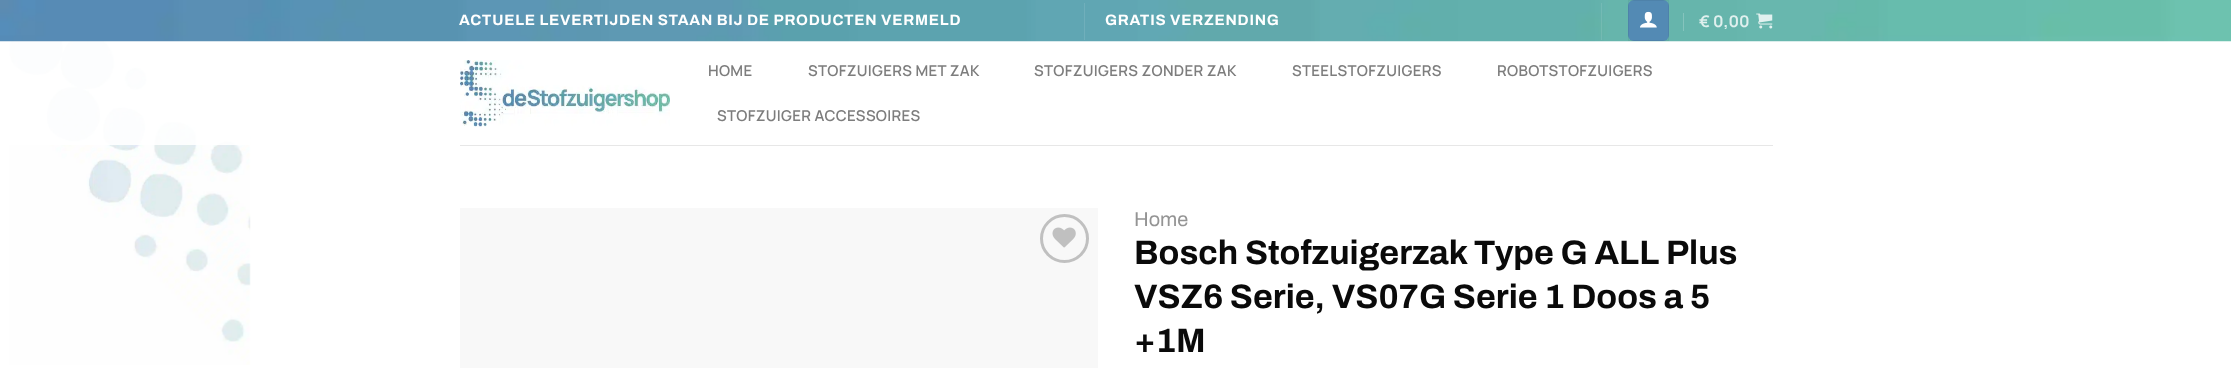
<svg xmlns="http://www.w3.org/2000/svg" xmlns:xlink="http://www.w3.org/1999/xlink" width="2231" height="368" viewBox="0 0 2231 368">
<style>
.cls-1{font:bold 15px Archivo;letter-spacing:0.75px;fill:#ffffff}
.cls-2{font:bold 16px Manrope;fill:#e0f0ee}
.cls-3{font:600 15px Manrope;letter-spacing:0.3px;fill:#7d7d7d}
.cls-4{font:20px Archivo;fill:#949494}
.cls-5{font:bold 34px Archivo;fill:#0a0a0a}
</style>
<rect width="100%" height="100%" fill="#ffffff"/>
<image xlink:href="image0.png" x="9" y="41" width="242" height="324"/>
<rect fill="#ffffff" fill-opacity="0.9" x="9" y="41" width="241" height="104"/>
<image xlink:href="image1.png" x="0" y="0" width="2231" height="42"/>
<rect fill="#70afbb" x="1084" y="3" width="1" height="37"/>
<rect fill="#ffffff" fill-opacity="0.1" x="1601" y="3" width="1" height="37"/>
<rect fill="#538ab4" x="1628" y="0" width="41" height="41" rx="6"/>
<rect fill="none" stroke="#000000" stroke-opacity="0.05" x="1628.5" y="0.5" width="40" height="40"/>
<image xlink:href="image2.png" x="1640" y="11" width="17" height="17"/>
<rect fill="#85c4bd" x="1683" y="13" width="1" height="18"/>
<image xlink:href="image3.png" x="1756" y="13" width="17" height="16"/>
<image xlink:href="image4.png" x="460" y="60" width="210" height="67"/>
<rect fill="#e7e7e7" x="460" y="145" width="1313" height="1"/>
<rect fill="#f8f8f8" x="460" y="208" width="638" height="160"/>
<circle fill="none" stroke="#c0c0c0" stroke-width="3" cx="1064.5" cy="238.5" r="23"/>
<image xlink:href="image5.png" x="1052" y="227" width="24" height="21"/>
<text class="cls-1" x="459" y="25">ACTUELE LEVERTIJDEN STAAN BIJ DE PRODUCTEN VERMELD</text>
<text class="cls-1" x="1105" y="25">GRATIS VERZENDING</text>
<text class="cls-2" x="1699" y="27">€ 0,00</text>
<text class="cls-3" x="708" y="76">HOME</text>
<text class="cls-3" x="808" y="76">STOFZUIGERS MET ZAK</text>
<text class="cls-3" x="1034" y="76">STOFZUIGERS ZONDER ZAK</text>
<text class="cls-3" x="1292" y="76">STEELSTOFZUIGERS</text>
<text class="cls-3" x="1497" y="76">ROBOTSTOFZUIGERS</text>
<text class="cls-3" x="717" y="121">STOFZUIGER ACCESSOIRES</text>
<text class="cls-4" x="1134" y="226">Home</text>
<text class="cls-5"><tspan x="1134" y="264">Bosch Stofzuigerzak Type G ALL Plus</tspan><tspan x="1134" y="308">VSZ6 Serie, VS07G Serie 1 Doos a 5</tspan><tspan x="1134" y="352">+1M</tspan></text>
</svg>
